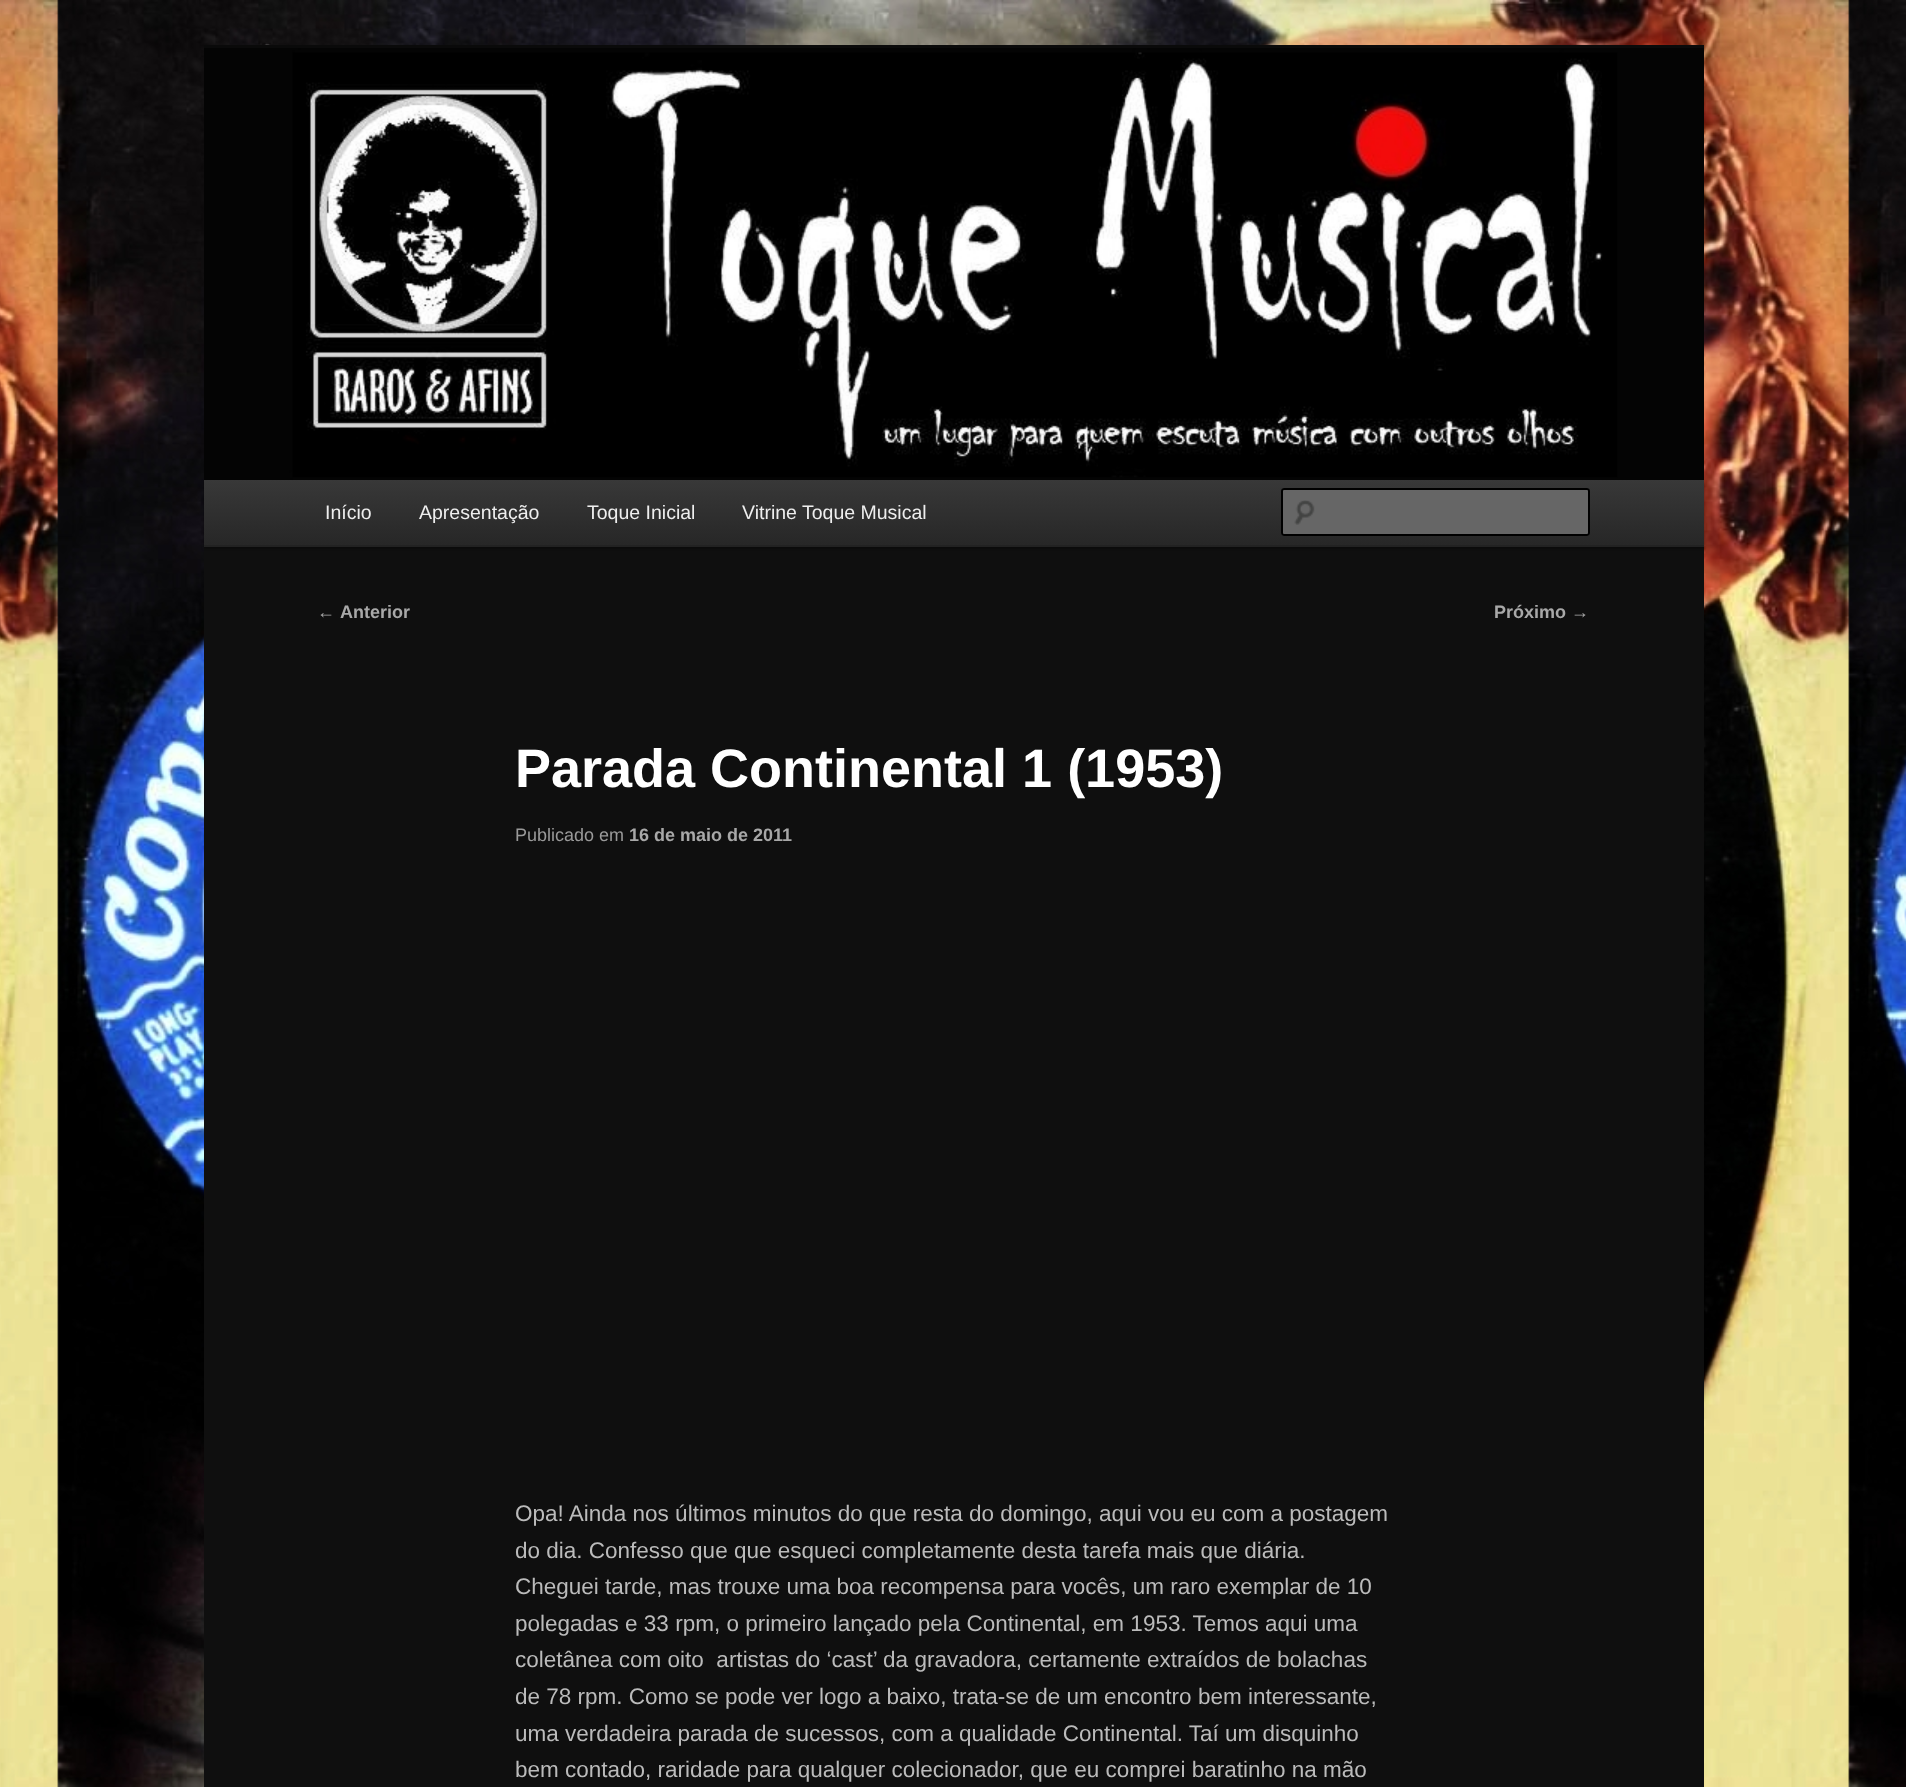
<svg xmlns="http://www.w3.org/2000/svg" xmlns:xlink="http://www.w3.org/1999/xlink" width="1906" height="1787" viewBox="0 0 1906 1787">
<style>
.cls-1{font:19.5px Liberation Sans;fill:#eeeeee}
.cls-2{font:18px Liberation Sans;fill:#a8a8a8}
.cls-3{font:bold 18px Liberation Sans;fill:#a8a8a8}
.cls-4{font:bold 54px Liberation Sans;fill:#ffffff}
.cls-5{font:18px Liberation Sans;fill:#999999}
.cls-6{font:22.5px Liberation Sans;fill:#bbbbbb}
</style>
<defs>
<linearGradient id="g1" gradientUnits="userSpaceOnUse" x1="954" y1="480" x2="954" y2="545"><stop offset="0" stop-color="#383838"/><stop offset="1" stop-color="#272727"/></linearGradient>
</defs>
<rect width="100%" height="100%" fill="#ffffff"/>
<image xlink:href="image0.png" x="0" y="0" width="1906" height="1787"/>
<rect fill="#0f0f0f" x="204" y="547" width="1500" height="1240"/>
<rect fill="#0a0a0a" x="204" y="45" width="1500" height="3"/>
<rect fill="#000000" fill-opacity="0.4" filter="blur(1.5px)" x="204" y="482" width="1500" height="66"/>
<image xlink:href="image1.png" x="204" y="48" width="1500" height="432"/>
<rect fill="url(#g1)" x="204" y="480" width="1500" height="65"/>
<rect fill="#222222" x="204" y="545" width="1500" height="2"/>
<rect fill="#666666" x="1281" y="488" width="309" height="48" rx="3"/>
<image xlink:href="image2.png" x="1294" y="500" width="21" height="25"/>
<rect fill="none" stroke="#000000" stroke-width="2" x="1282" y="489" width="307" height="46" rx="2"/>
<text class="cls-1" x="325" y="519">Início</text>
<text class="cls-1" x="419" y="519">Apresentação</text>
<text class="cls-1" x="587" y="519">Toque Inicial</text>
<text class="cls-1" x="742" y="519">Vitrine Toque Musical</text>
<text class="cls-2" x="317" y="618">←</text>
<text class="cls-3" x="340" y="618">Anterior</text>
<text class="cls-3" x="1494" y="618">Próximo</text>
<text class="cls-2" x="1571" y="618">→</text>
<text class="cls-4" x="515" y="787">Parada Continental 1 (1953)</text>
<text class="cls-5" x="515" y="841">Publicado em</text>
<text class="cls-3" x="629" y="841">16 de maio de 2011</text>
<text class="cls-6" xml:space="preserve"><tspan x="515" y="1521">Opa! Ainda nos últimos minutos do que resta do domingo, aqui vou eu com a postagem</tspan><tspan x="515" y="1558">do dia. Confesso que que esqueci completamente desta tarefa mais que diária.</tspan><tspan x="515" y="1594">Cheguei tarde, mas trouxe uma boa recompensa para vocês, um raro exemplar de 10</tspan><tspan x="515" y="1631">polegadas e 33 rpm, o primeiro lançado pela Continental, em 1953. Temos aqui uma</tspan><tspan x="515" y="1667">coletânea com oito  artistas do ‘cast’ da gravadora, certamente extraídos de bolachas</tspan><tspan x="515" y="1704">de 78 rpm. Como se pode ver logo a baixo, trata-se de um encontro bem interessante,</tspan><tspan x="515" y="1741">uma verdadeira parada de sucessos, com a qualidade Continental. Taí um disquinho</tspan><tspan x="515" y="1777">bem contado, raridade para qualquer colecionador, que eu comprei baratinho na mão</tspan></text>
</svg>
